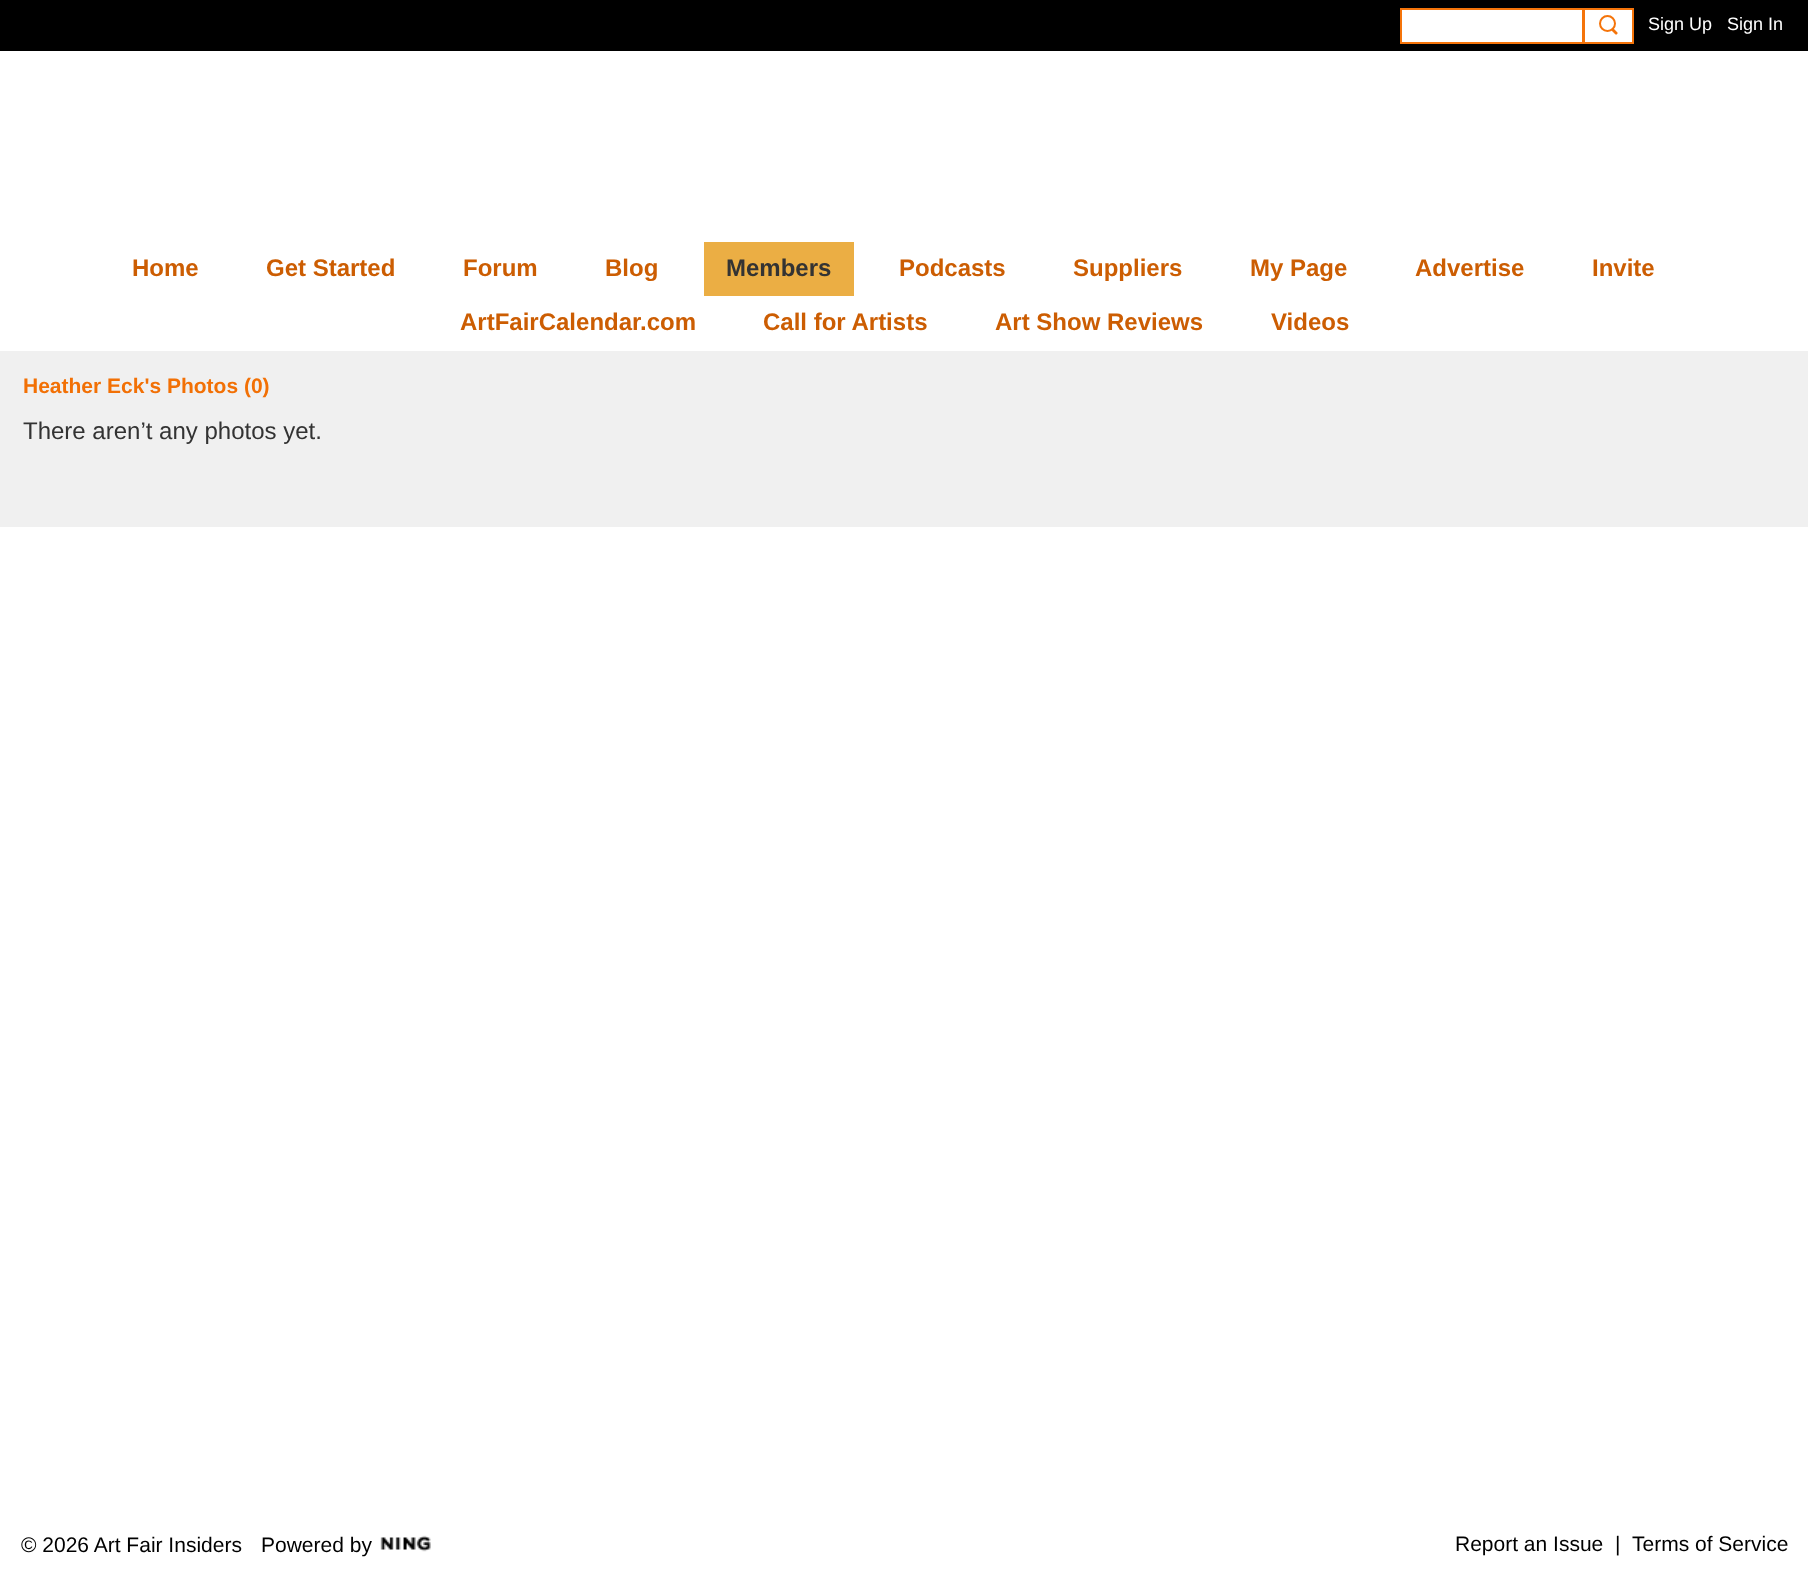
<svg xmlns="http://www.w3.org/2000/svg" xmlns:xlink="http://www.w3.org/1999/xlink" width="1808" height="1594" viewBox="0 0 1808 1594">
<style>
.cls-1{font:18px Liberation Sans;fill:#ffffff}
.cls-2{font:bold 24px Liberation Sans;fill:#cc5d02}
.cls-3{font:bold 24px Liberation Sans;fill:#333333}
.cls-4{font:bold 21px Liberation Sans;fill:#f27005}
.cls-5{font:24px Liberation Sans;fill:#333333}
.cls-6{font:21px Liberation Sans;fill:#000000}
</style>
<rect width="100%" height="100%" fill="#ffffff"/>
<rect fill="#000000" x="0" y="0" width="1808" height="51"/>
<rect fill="#ffffff" stroke="#f5740a" stroke-width="2" x="1401" y="9" width="182" height="34"/>
<rect fill="#ffffff" stroke="#f5740a" stroke-width="2" x="1584" y="9" width="49" height="34"/>
<circle fill="none" stroke="#f5740a" stroke-width="2" cx="1607.5" cy="23.5" r="7.5"/>
<path fill="#f5740a" d="M1614 29L1617.5 32.5C1618 33.5 1617 35 1615.5 34.5L1611.5 30.5C1611 29 1613 27.5 1614 29Z"/>
<rect fill="#ebae44" x="704" y="242" width="150" height="54"/>
<rect fill="#f0f0f0" x="0" y="351" width="1808" height="176"/>
<image xlink:href="image0.png" x="380" y="1535" width="51" height="17"/>
<text class="cls-1" x="1648" y="30">Sign Up</text>
<text class="cls-1" x="1727" y="30">Sign In</text>
<text class="cls-2" x="132" y="276">Home</text>
<text class="cls-2" x="266" y="276">Get Started</text>
<text class="cls-2" x="463" y="276">Forum</text>
<text class="cls-2" x="605" y="276">Blog</text>
<text class="cls-3" x="726" y="276">Members</text>
<text class="cls-2" x="899" y="276">Podcasts</text>
<text class="cls-2" x="1073" y="276">Suppliers</text>
<text class="cls-2" x="1250" y="276">My Page</text>
<text class="cls-2" x="1415" y="276">Advertise</text>
<text class="cls-2" x="1592" y="276">Invite</text>
<text class="cls-2" x="460" y="330">ArtFairCalendar.com</text>
<text class="cls-2" x="763" y="330">Call for Artists</text>
<text class="cls-2" x="995" y="330">Art Show Reviews</text>
<text class="cls-2" x="1271" y="330">Videos</text>
<text class="cls-4" x="23" y="393">Heather Eck's Photos (0)</text>
<text class="cls-5" x="23" y="439">There aren’t any photos yet.</text>
<text class="cls-6" x="21" y="1552">© 2026 Art Fair Insiders</text>
<text class="cls-6" x="261" y="1552">Powered by</text>
<text class="cls-6" x="1455" y="1551">Report an Issue</text>
<text class="cls-6" x="1615" y="1551">|</text>
<text class="cls-6" x="1632" y="1551">Terms of Service</text>
</svg>
